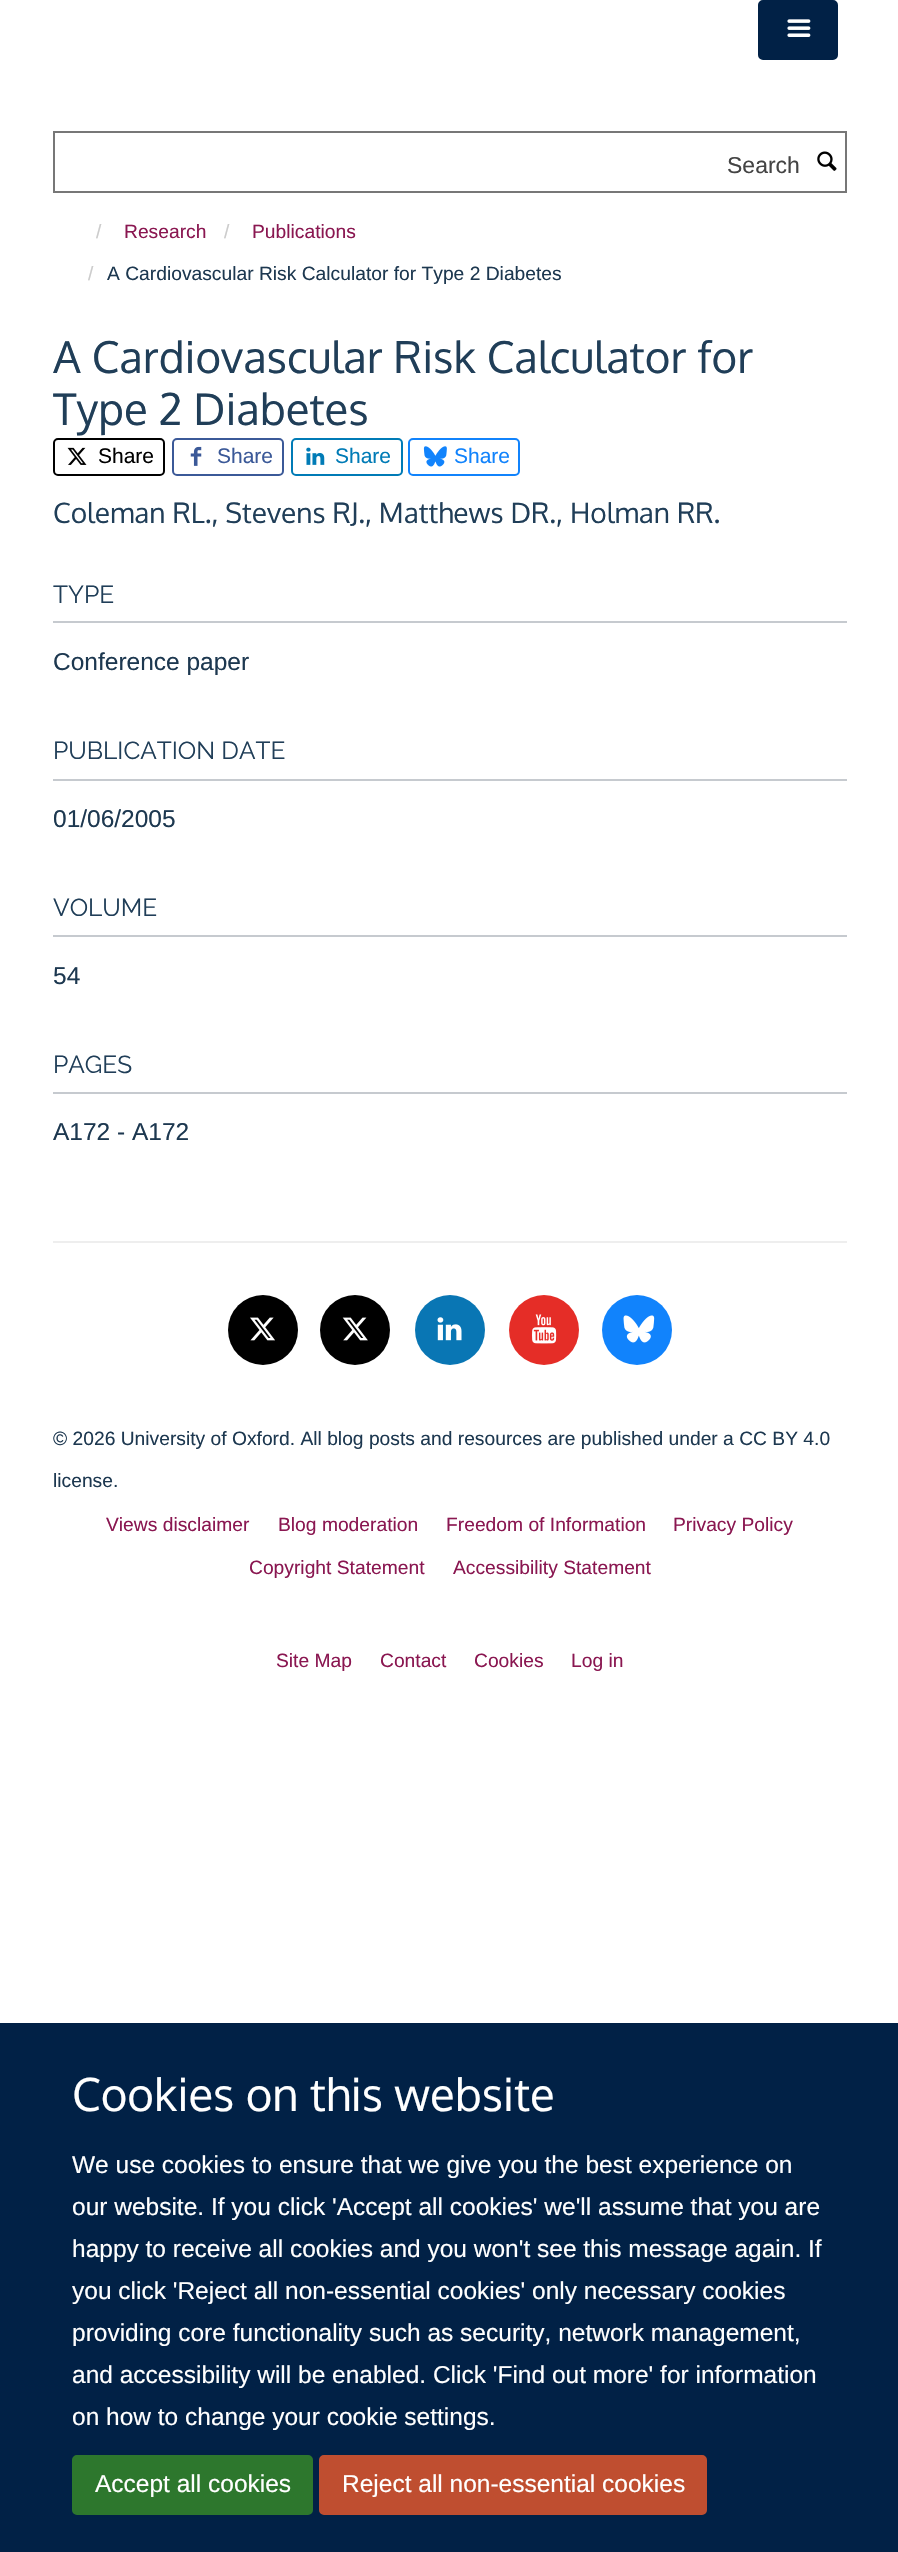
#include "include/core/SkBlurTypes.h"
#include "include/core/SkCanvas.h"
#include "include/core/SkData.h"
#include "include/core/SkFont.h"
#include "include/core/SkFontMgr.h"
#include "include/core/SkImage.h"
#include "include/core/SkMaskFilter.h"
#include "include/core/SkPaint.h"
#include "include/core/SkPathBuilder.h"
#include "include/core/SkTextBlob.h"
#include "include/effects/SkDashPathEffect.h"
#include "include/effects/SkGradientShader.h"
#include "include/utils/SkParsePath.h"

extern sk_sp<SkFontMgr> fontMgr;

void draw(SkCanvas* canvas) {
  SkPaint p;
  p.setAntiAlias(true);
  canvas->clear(SK_ColorWHITE);
  p.setColor(SkColorSetRGB(1, 33, 70));
  canvas->drawRoundRect(SkRect::MakeLTRB(759, 1, 837, 59), 4, 4, p);
  p.setStyle(SkPaint::kStroke_Style);
  p.setStrokeWidth(2);
  canvas->drawRoundRect(SkRect::MakeLTRB(759, 1, 837, 59), 4, 4, p);
  canvas->drawImageRect(SkImages::DeferredFromEncodedData(SkData::MakeFromFileName("images/1.png")), SkRect::MakeLTRB(787, 19, 811, 37), SkSamplingOptions());
  p.setColor(SkColorSetRGB(119, 119, 119));
  canvas->drawRect(SkRect::MakeLTRB(54, 132, 846, 192), p);
  canvas->drawImageRect(SkImages::DeferredFromEncodedData(SkData::MakeFromFileName("images/2.png")), SkRect::MakeLTRB(817, 151, 837, 171), SkSamplingOptions());
  p.setColor(SK_ColorBLACK);
  canvas->drawRoundRect(SkRect::MakeLTRB(54, 439, 164, 475), 4, 4, p);
  canvas->drawImageRect(SkImages::DeferredFromEncodedData(SkData::MakeFromFileName("images/3.png")), SkRect::MakeLTRB(67, 447, 87, 465), SkSamplingOptions());
  p.setColor(SkColorSetRGB(59, 89, 152));
  canvas->drawRoundRect(SkRect::MakeLTRB(173, 439, 283, 475), 4, 4, p);
  canvas->drawImageRect(SkImages::DeferredFromEncodedData(SkData::MakeFromFileName("images/4.png")), SkRect::MakeLTRB(190, 446, 202, 466), SkSamplingOptions());
  p.setColor(SkColorSetRGB(0, 123, 182));
  canvas->drawRoundRect(SkRect::MakeLTRB(292, 439, 402, 475), 4, 4, p);
  canvas->drawImageRect(SkImages::DeferredFromEncodedData(SkData::MakeFromFileName("images/5.png")), SkRect::MakeLTRB(306, 447, 325, 465), SkSamplingOptions());
  p.setColor(SkColorSetRGB(17, 131, 252));
  canvas->drawRoundRect(SkRect::MakeLTRB(409, 439, 519, 475), 4, 4, p);
  canvas->drawImageRect(SkImages::DeferredFromEncodedData(SkData::MakeFromFileName("images/6.png")), SkRect::MakeLTRB(423, 446, 447, 467), SkSamplingOptions());
  p.setStyle(SkPaint::kFill_Style);
  p.setColor(SkColorSetRGB(198, 202, 207));
  canvas->drawRect(SkRect::MakeLTRB(53, 621, 847, 623), p);
  canvas->drawRect(SkRect::MakeLTRB(53, 779, 847, 781), p);
  canvas->drawRect(SkRect::MakeLTRB(53, 935, 847, 937), p);
  canvas->drawRect(SkRect::MakeLTRB(53, 1092, 847, 1094), p);
  p.setColor(SkColorSetRGB(238, 238, 238));
  canvas->drawRect(SkRect::MakeLTRB(53, 1241, 847, 1243), p);
  p.setColor(SK_ColorBLACK);
  canvas->drawCircle(263, 1330, 35, p);
  canvas->drawImageRect(SkImages::DeferredFromEncodedData(SkData::MakeFromFileName("images/7.png")), SkRect::MakeLTRB(250, 1317, 275, 1341), SkSamplingOptions());
  canvas->drawCircle(355, 1330, 35, p);
  canvas->drawImageRect(SkImages::DeferredFromEncodedData(SkData::MakeFromFileName("images/8.png")), SkRect::MakeLTRB(342, 1317, 368, 1341), SkSamplingOptions());
  p.setColor(SkColorSetRGB(9, 118, 180));
  canvas->drawCircle(450, 1330, 35, p);
  canvas->drawImageRect(SkImages::DeferredFromEncodedData(SkData::MakeFromFileName("images/9.png")), SkRect::MakeLTRB(437, 1317, 462, 1341), SkSamplingOptions());
  p.setColor(SkColorSetRGB(229, 45, 39));
  canvas->drawCircle(544, 1330, 35, p);
  canvas->drawImageRect(SkImages::DeferredFromEncodedData(SkData::MakeFromFileName("images/10.png")), SkRect::MakeLTRB(532, 1314, 557, 1344), SkSamplingOptions());
  p.setColor(SkColorSetRGB(17, 131, 252));
  canvas->drawCircle(637, 1330, 35, p);
  canvas->drawImageRect(SkImages::DeferredFromEncodedData(SkData::MakeFromFileName("images/11.png")), SkRect::MakeLTRB(623, 1315, 655, 1343), SkSamplingOptions());
  p.setColor(SkColorSetRGB(1, 33, 70));
  canvas->drawRect(SkRect::MakeLTRB(0, 2023, 898, 2552), p);
  p.setColor(SkColorSetRGB(45, 119, 45));
  canvas->drawRoundRect(SkRect::MakeLTRB(73, 2456, 312, 2514), 4, 4, p);
  p.setStyle(SkPaint::kStroke_Style);
  canvas->drawRoundRect(SkRect::MakeLTRB(73, 2456, 312, 2514), 4, 4, p);
  p.setStyle(SkPaint::kFill_Style);
  p.setColor(SkColorSetRGB(191, 78, 48));
  canvas->drawRoundRect(SkRect::MakeLTRB(320, 2456, 706, 2514), 4, 4, p);
  p.setStyle(SkPaint::kStroke_Style);
  canvas->drawRoundRect(SkRect::MakeLTRB(320, 2456, 706, 2514), 4, 4, p);
  SkFont font1(fontMgr->matchFamilyStyle("Liberation Sans", SkFontStyle::Normal()), 23);
  font1.setSubpixel(true);
  p.setStyle(SkPaint::kFill_Style);
  p.setColor(SkColorSetRGB(68, 68, 68));
  canvas->drawString("Search", 727, 173, font1, p);
  SkFont font2(fontMgr->matchFamilyStyle("Liberation Sans", SkFontStyle::Normal()), 19.25f);
  font2.setSubpixel(true);
  p.setColor(SkColorSetRGB(204, 204, 204));
  canvas->drawString("/", 96, 238, font2, p);
  p.setColor(SkColorSetRGB(138, 23, 81));
  canvas->drawString("Research", 124, 238, font2, p);
  p.setColor(SkColorSetRGB(204, 204, 204));
  canvas->drawString("/", 224, 238, font2, p);
  p.setColor(SkColorSetRGB(138, 23, 81));
  canvas->drawString("Publications", 252, 238, font2, p);
  p.setColor(SkColorSetRGB(204, 204, 204));
  canvas->drawString("/", 88, 280, font2, p);
  p.setColor(SkColorSetRGB(29, 56, 80));
  canvas->drawString("A Cardiovascular Risk Calculator for Type 2 Diabetes", 107, 280, font2, p);
  SkFont font3(fontMgr->matchFamilyStyle("Oxygen", SkFontStyle::Normal()), 43.75f);
  font3.setSubpixel(true);
  p.setColor(SkColorSetRGB(32, 62, 88));
  canvas->drawString("A Cardiovascular Risk Calculator for", 53, 373, font3, p);
  canvas->drawString("Type 2 Diabetes", 53, 425, font3, p);
  SkFont font4(fontMgr->matchFamilyStyle("Liberation Sans", SkFontStyle::Normal()), 21);
  font4.setSubpixel(true);
  p.setColor(SK_ColorBLACK);
  canvas->drawString("Share", 98, 463, font4, p);
  p.setColor(SkColorSetRGB(59, 89, 152));
  canvas->drawString("Share", 217, 463, font4, p);
  p.setColor(SkColorSetRGB(0, 123, 182));
  canvas->drawString("Share", 335, 463, font4, p);
  p.setColor(SkColorSetRGB(17, 131, 252));
  canvas->drawString("Share", 454, 463, font4, p);
  SkFont font5(fontMgr->matchFamilyStyle("Oxygen", SkFontStyle::Normal()), 28);
  font5.setSubpixel(true);
  p.setColor(SkColorSetRGB(32, 62, 88));
  canvas->drawString("Coleman RL., Stevens RJ., Matthews DR., Holman RR.", 53, 523, font5, p);
  SkFont font6(fontMgr->matchFamilyStyle("Raleway", SkFontStyle(100, SkFontStyle::kNormal_Width, SkFontStyle::kUpright_Slant)), 24.5f);
  font6.setSubpixel(true);
  canvas->drawString("TYPE", 53, 603, font6, p);
  SkFont font7(fontMgr->matchFamilyStyle("Liberation Sans", SkFontStyle::Normal()), 24.5f);
  font7.setSubpixel(true);
  p.setColor(SkColorSetRGB(29, 56, 80));
  canvas->drawString("Conference paper", 53, 670, font7, p);
  p.setColor(SkColorSetRGB(32, 62, 88));
  canvas->drawString("PUBLICATION DATE", 53, 759, font6, p);
  p.setColor(SkColorSetRGB(29, 56, 80));
  canvas->drawString("01/06/2005", 53, 827, font7, p);
  p.setColor(SkColorSetRGB(32, 62, 88));
  canvas->drawString("VOLUME", 53, 916, font6, p);
  p.setColor(SkColorSetRGB(29, 56, 80));
  canvas->drawString("54", 53, 984, font7, p);
  p.setColor(SkColorSetRGB(32, 62, 88));
  canvas->drawString("PAGES", 53, 1073, font6, p);
  p.setColor(SkColorSetRGB(29, 56, 80));
  canvas->drawString("A172 - A172", 53, 1140, font7, p);
  canvas->drawString("© 2026 University of Oxford. All blog posts and resources are published under a CC BY 4.0", 53, 1445, font2, p);
  canvas->drawString("license.", 53, 1487, font2, p);
  p.setColor(SkColorSetRGB(138, 23, 81));
  canvas->drawString("Views disclaimer", 106, 1531, font2, p);
  canvas->drawString("Blog moderation", 278, 1531, font2, p);
  canvas->drawString("Freedom of Information", 446, 1531, font2, p);
  canvas->drawString("Privacy Policy", 673, 1531, font2, p);
  canvas->drawString("Copyright Statement", 249, 1574, font2, p);
  canvas->drawString("Accessibility Statement", 453, 1574, font2, p);
  canvas->drawString("Site Map", 276, 1667, font2, p);
  canvas->drawString("Contact", 380, 1667, font2, p);
  canvas->drawString("Cookies", 474, 1667, font2, p);
  canvas->drawString("Log in", 571, 1667, font2, p);
  SkFont font8(fontMgr->matchFamilyStyle("Oxygen", SkFontStyle::Normal()), 45.5f);
  font8.setSubpixel(true);
  p.setColor(SK_ColorWHITE);
  canvas->drawString("Cookies on this website", 72, 2111, font8, p);
  canvas->drawString("We use cookies to ensure that we give you the best experience on", 72, 2173, font7, p);
  canvas->drawString("our website. If you click 'Accept all cookies' we'll assume that you are", 72, 2215, font7, p);
  canvas->drawString("happy to receive all cookies and you won't see this message again. If", 72, 2257, font7, p);
  canvas->drawString("you click 'Reject all non-essential cookies' only necessary cookies", 72, 2299, font7, p);
  canvas->drawString("providing core functionality such as security, network management,", 72, 2341, font7, p);
  canvas->drawString("and accessibility will be enabled. Click 'Find out more' for information", 72, 2383, font7, p);
  canvas->drawString("on how to change your cookie settings.", 72, 2425, font7, p);
  canvas->drawString("Accept all cookies", 95, 2492, font7, p);
  canvas->drawString("Reject all non-essential cookies", 342, 2492, font7, p);
}
